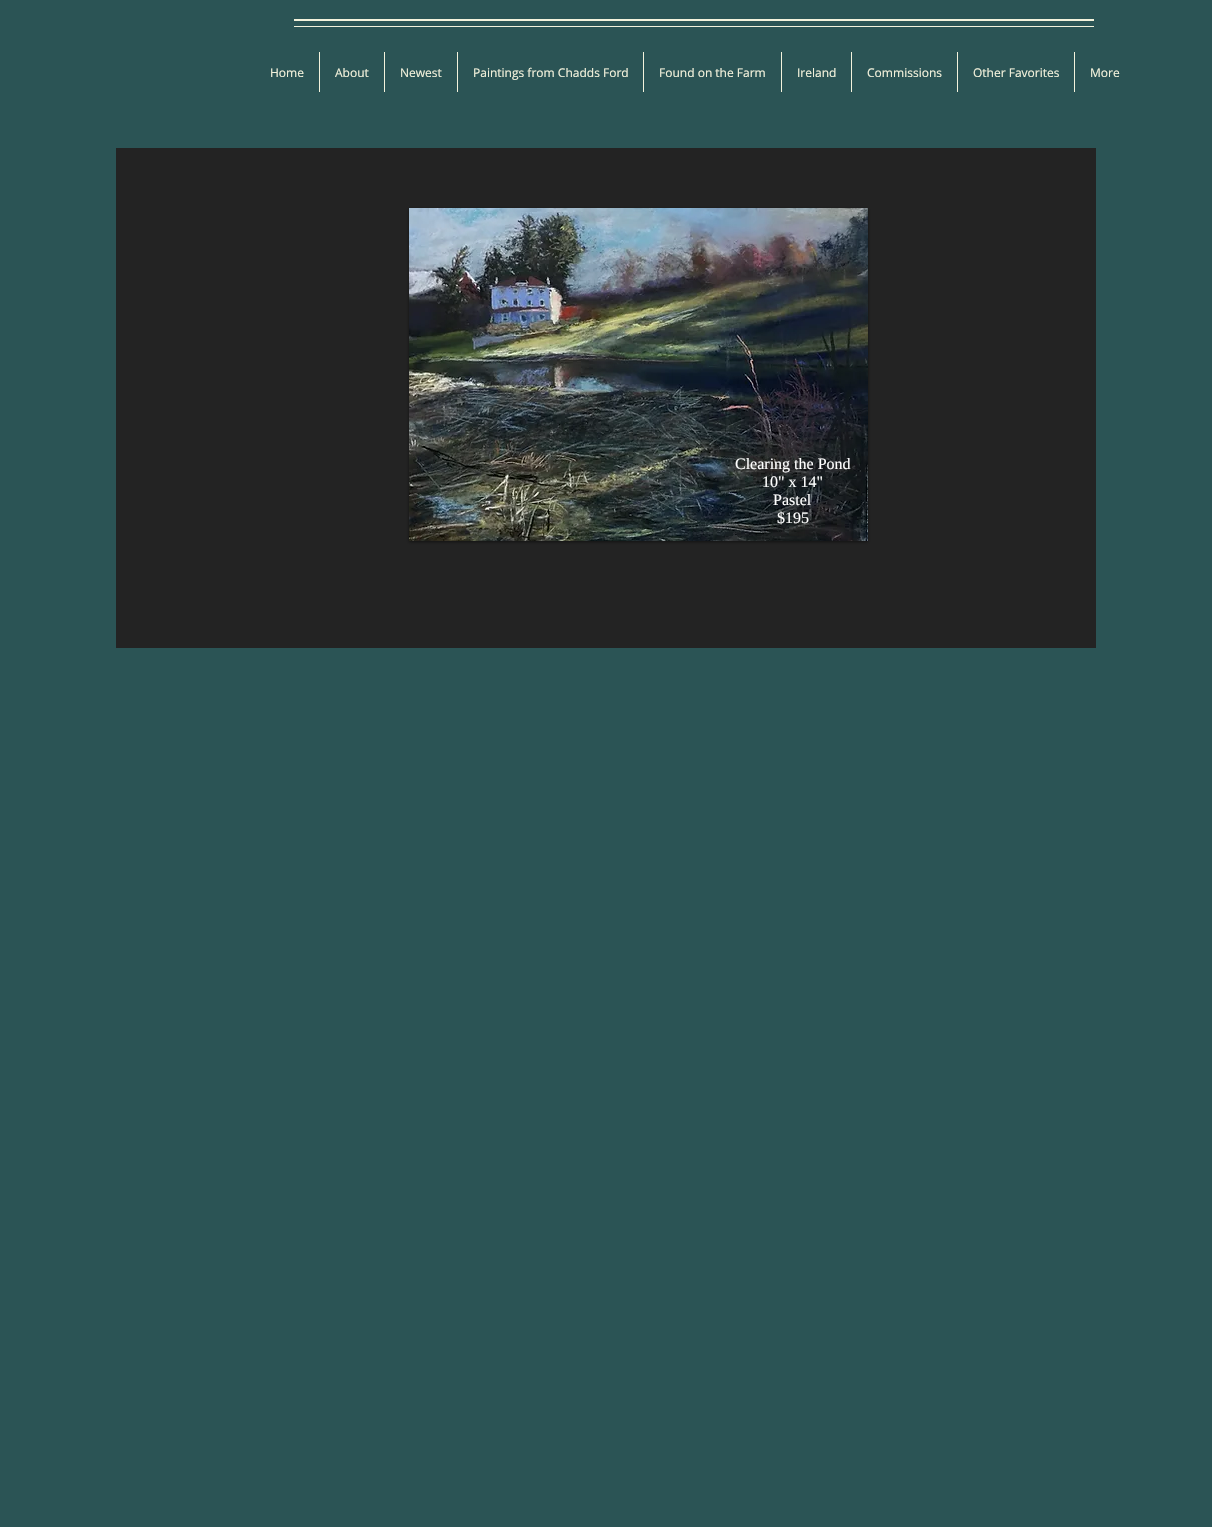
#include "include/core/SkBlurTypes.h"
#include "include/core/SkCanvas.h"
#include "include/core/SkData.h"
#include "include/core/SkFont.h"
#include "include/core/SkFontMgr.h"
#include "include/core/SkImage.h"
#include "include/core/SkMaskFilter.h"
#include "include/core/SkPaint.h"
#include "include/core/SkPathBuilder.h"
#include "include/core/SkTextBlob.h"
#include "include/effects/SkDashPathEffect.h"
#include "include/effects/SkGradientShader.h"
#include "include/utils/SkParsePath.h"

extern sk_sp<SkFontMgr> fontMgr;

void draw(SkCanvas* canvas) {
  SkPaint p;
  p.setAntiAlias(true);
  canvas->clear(SkColorSetRGB(43, 84, 85));
  p.setColor(SkColorSetRGB(243, 242, 220));
  canvas->drawRect(SkRect::MakeLTRB(294, 19, 1094, 21), p);
  canvas->drawRect(SkRect::MakeLTRB(294, 26, 1094, 27), p);
  canvas->drawRect(SkRect::MakeLTRB(319, 52, 320, 92), p);
  canvas->drawRect(SkRect::MakeLTRB(384, 52, 385, 92), p);
  canvas->drawRect(SkRect::MakeLTRB(457, 52, 458, 92), p);
  canvas->drawRect(SkRect::MakeLTRB(643, 52, 644, 92), p);
  canvas->drawRect(SkRect::MakeLTRB(781, 52, 782, 92), p);
  canvas->drawRect(SkRect::MakeLTRB(851, 52, 852, 92), p);
  canvas->drawRect(SkRect::MakeLTRB(957, 52, 958, 92), p);
  canvas->drawRect(SkRect::MakeLTRB(1074, 52, 1075, 92), p);
  p.setColor(SkColorSetRGB(35, 35, 35));
  canvas->drawRect(SkRect::MakeLTRB(116, 148, 1096, 648), p);
  p.setColor(SkColorSetARGB(128, 0, 0, 0));
  p.setMaskFilter(SkMaskFilter::MakeBlur(kNormal_SkBlurStyle, 1.5f));
  canvas->drawRect(SkRect::MakeLTRB(409, 209, 868, 542), p);
  p.setMaskFilter(nullptr);
  canvas->drawImageRect(SkImages::DeferredFromEncodedData(SkData::MakeFromFileName("images/1.png")), SkRect::MakeLTRB(409, 208, 868, 541), SkSamplingOptions());
  SkFont font1(fontMgr->matchFamilyStyle("Open Sans", SkFontStyle::Normal()), 12);
  font1.setSubpixel(true);
  p.setColor(SkColorSetRGB(243, 242, 220));
  canvas->drawString("Home", 270, 77, font1, p);
  canvas->drawString("About", 335, 77, font1, p);
  canvas->drawString("Newest", 400, 77, font1, p);
  canvas->drawString("Paintings from Chadds Ford", 473, 77, font1, p);
  canvas->drawString("Found on the Farm", 659, 77, font1, p);
  canvas->drawString("Ireland", 797, 77, font1, p);
  canvas->drawString("Commissions", 867, 77, font1, p);
  canvas->drawString("Other Favorites", 973, 77, font1, p);
  canvas->drawString("More", 1090, 77, font1, p);
  SkFont font2(fontMgr->matchFamilyStyle("Liberation Serif", SkFontStyle::Normal()), 16);
  font2.setSubpixel(true);
  p.setColor(SK_ColorWHITE);
  canvas->drawString("Clearing the Pond", 735, 469, font2, p);
  canvas->drawString("10\" x 14\"", 762, 487, font2, p);
  canvas->drawString("Pastel", 773, 505, font2, p);
  canvas->drawString("$195", 777, 523, font2, p);
}
